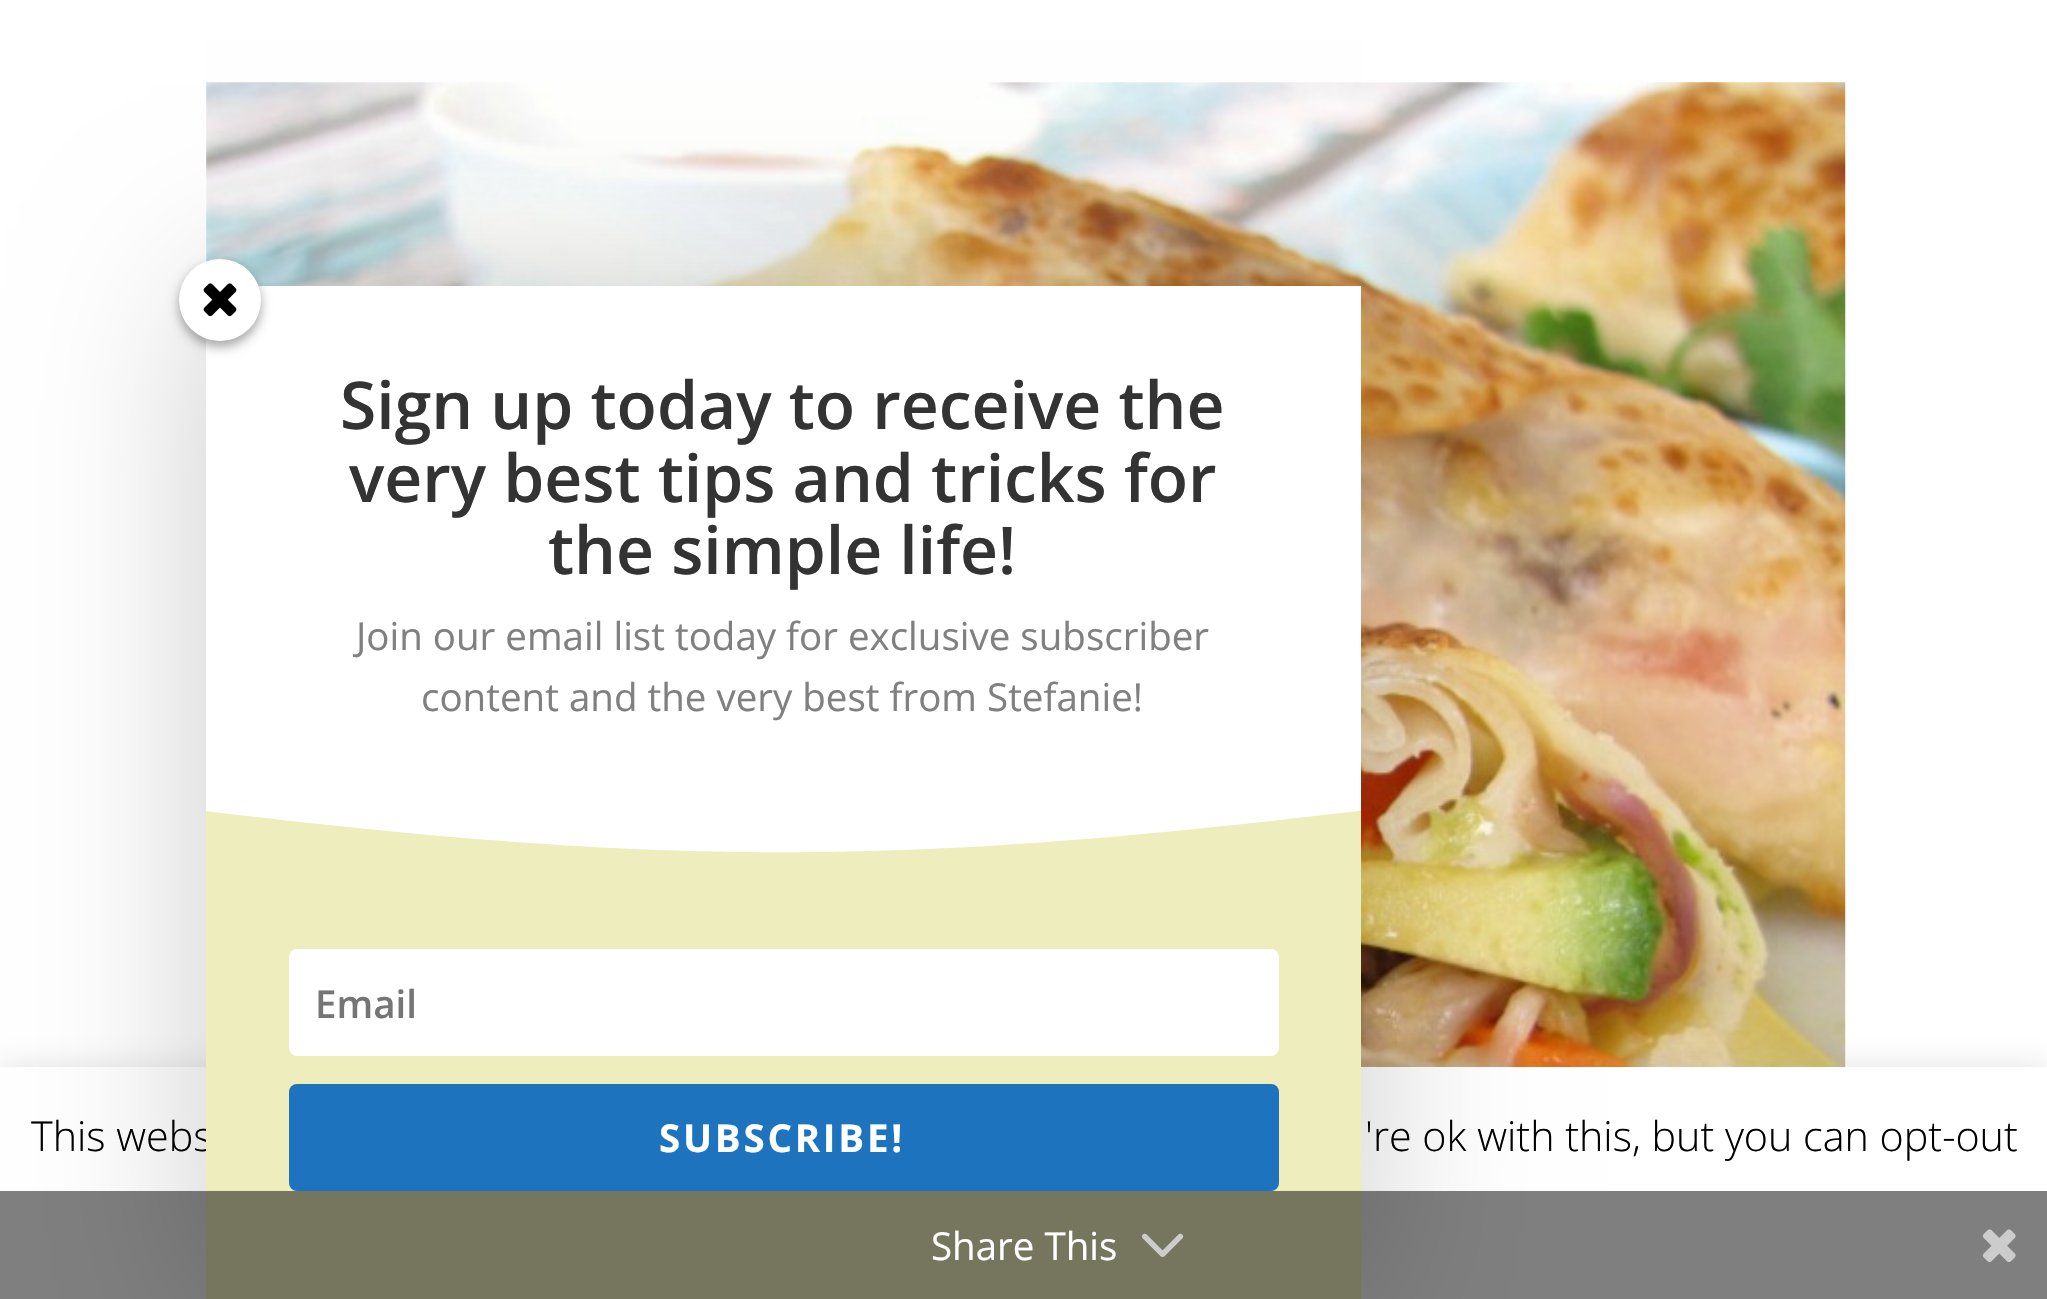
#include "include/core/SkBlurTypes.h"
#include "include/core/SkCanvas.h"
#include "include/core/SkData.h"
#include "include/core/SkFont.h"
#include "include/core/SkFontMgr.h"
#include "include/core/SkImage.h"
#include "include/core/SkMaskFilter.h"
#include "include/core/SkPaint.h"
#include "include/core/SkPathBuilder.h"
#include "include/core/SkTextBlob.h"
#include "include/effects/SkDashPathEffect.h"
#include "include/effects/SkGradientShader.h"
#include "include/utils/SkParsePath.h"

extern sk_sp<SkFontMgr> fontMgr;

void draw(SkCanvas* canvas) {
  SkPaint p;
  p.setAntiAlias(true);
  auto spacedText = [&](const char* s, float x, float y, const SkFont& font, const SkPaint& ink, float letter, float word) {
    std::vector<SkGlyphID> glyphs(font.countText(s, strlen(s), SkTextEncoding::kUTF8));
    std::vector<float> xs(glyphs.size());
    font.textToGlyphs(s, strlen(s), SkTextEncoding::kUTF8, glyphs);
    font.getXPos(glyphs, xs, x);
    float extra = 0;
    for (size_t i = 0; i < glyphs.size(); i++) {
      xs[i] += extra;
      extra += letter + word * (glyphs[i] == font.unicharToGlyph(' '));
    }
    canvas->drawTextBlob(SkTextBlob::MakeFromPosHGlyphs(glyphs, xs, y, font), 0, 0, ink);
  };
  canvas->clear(SK_ColorWHITE);
  canvas->drawImageRect(SkImages::DeferredFromEncodedData(SkData::MakeFromFileName("images/1.png")), SkRect::MakeLTRB(206, 82, 1846, 1067), SkSamplingOptions());
  p.setColor(SkColorSetARGB(77, 172, 171, 171));
  p.setMaskFilter(SkMaskFilter::MakeBlur(kNormal_SkBlurStyle, 14));
  canvas->drawRect(SkRect::MakeLTRB(0, 1064, 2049, 1298), p);
  p.setMaskFilter(nullptr);
  p.setColor(SK_ColorWHITE);
  canvas->drawRect(SkRect::MakeLTRB(0, 1067, 2047, 1299), p);
  p.setColor(SkColorSetARGB(51, 0, 0, 0));
  p.setMaskFilter(SkMaskFilter::MakeBlur(kNormal_SkBlurStyle, 82.5f));
  canvas->drawRect(SkRect::MakeLTRB(206, 286, 1361, 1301), p);
  p.setMaskFilter(nullptr);
  p.setColor(SK_ColorWHITE);
  canvas->drawRect(SkRect::MakeLTRB(206, 286, 1361, 811), p);
  p.setColor(SkColorSetARGB(87, 0, 0, 0));
  p.setMaskFilter(SkMaskFilter::MakeBlur(kNormal_SkBlurStyle, 5.5f));
  canvas->drawRoundRect(SkRect::MakeLTRB(179, 264, 261, 347), 41, 41, p);
  p.setMaskFilter(nullptr);
  p.setColor(SK_ColorWHITE);
  canvas->drawCircle(220, 300, 41, p);
  canvas->drawImageRect(SkImages::DeferredFromEncodedData(SkData::MakeFromFileName("images/2.png")), SkRect::MakeLTRB(203, 283, 237, 317), SkSamplingOptions());
  SkFont font1(fontMgr->matchFamilyStyle("Open Sans", SkFontStyle(600, SkFontStyle::kNormal_Width, SkFontStyle::kUpright_Slant)), 66);
  font1.setSubpixel(true);
  p.setColor(SkColorSetRGB(51, 51, 51));
  canvas->drawString("Sign up today to receive the", 340, 429, font1, p);
  canvas->drawString("very best tips and tricks for", 349, 502, font1, p);
  canvas->drawString("the simple life!", 548, 574, font1, p);
  SkFont font2(fontMgr->matchFamilyStyle("Open Sans", SkFontStyle::Normal()), 38.5f);
  font2.setSubpixel(true);
  p.setColor(SkColorSetRGB(128, 128, 128));
  canvas->drawString("Join our email list today for exclusive subscriber", 356, 650, font2, p);
  canvas->drawString("content and the very best from Stefanie!", 421, 711, font2, p);
  SkFont font3(fontMgr->matchFamilyStyle("Open Sans", SkFontStyle(300, SkFontStyle::kNormal_Width, SkFontStyle::kUpright_Slant)), 41.25f);
  font3.setSubpixel(true);
  p.setColor(SK_ColorBLACK);
  canvas->drawString("This webs", 31, 1151, font3, p);
  p.setColor(SkColorSetRGB(237, 237, 189));
  canvas->drawRect(SkRect::MakeLTRB(206, 811, 1361, 1299), p);
  p.setColor(SK_ColorWHITE);
  canvas->drawPath(SkPathBuilder().moveTo(204, 811).cubicTo(666, 866, 896, 866, 1358, 811).close().detach(), p);
  p.setColor(SkColorSetRGB(30, 115, 190));
  canvas->drawRoundRect(SkRect::MakeLTRB(289, 1084, 1279, 1191), 8, 8, p);
  SkFont font4(fontMgr->matchFamilyStyle("Open Sans", SkFontStyle::Bold()), 38.5f);
  font4.setSubpixel(true);
  p.setColor(SK_ColorWHITE);
  spacedText("SUBSCRIBE!", 659, 1152, font4, p, 2.75f, 0);
  canvas->drawRoundRect(SkRect::MakeLTRB(289, 949, 1279, 1056), 8, 8, p);
  SkFont font5(fontMgr->matchFamilyStyle("Open Sans", SkFontStyle(600, SkFontStyle::kNormal_Width, SkFontStyle::kUpright_Slant)), 38.5f);
  font5.setSubpixel(true);
  p.setColor(SkColorSetRGB(117, 117, 117));
  canvas->drawString("Email", 315, 1018, font5, p);
  p.setColor(SK_ColorBLACK);
  canvas->drawString("'re ok with this, but you can opt-out", 1365, 1151, font3, p);
  p.setColor(SkColorSetARGB(128, 0, 0, 0));
  canvas->drawRect(SkRect::MakeLTRB(0, 1191, 2047, 1299), p);
  p.setColor(SK_ColorWHITE);
  canvas->drawString("Share This", 931, 1260, font2, p);
  canvas->drawImageRect(SkImages::DeferredFromEncodedData(SkData::MakeFromFileName("images/3.png")), SkRect::MakeLTRB(1142, 1233, 1184, 1257), SkSamplingOptions());
  canvas->drawImageRect(SkImages::DeferredFromEncodedData(SkData::MakeFromFileName("images/4.png")), SkRect::MakeLTRB(1982, 1229, 2016, 1263), SkSamplingOptions());
}
